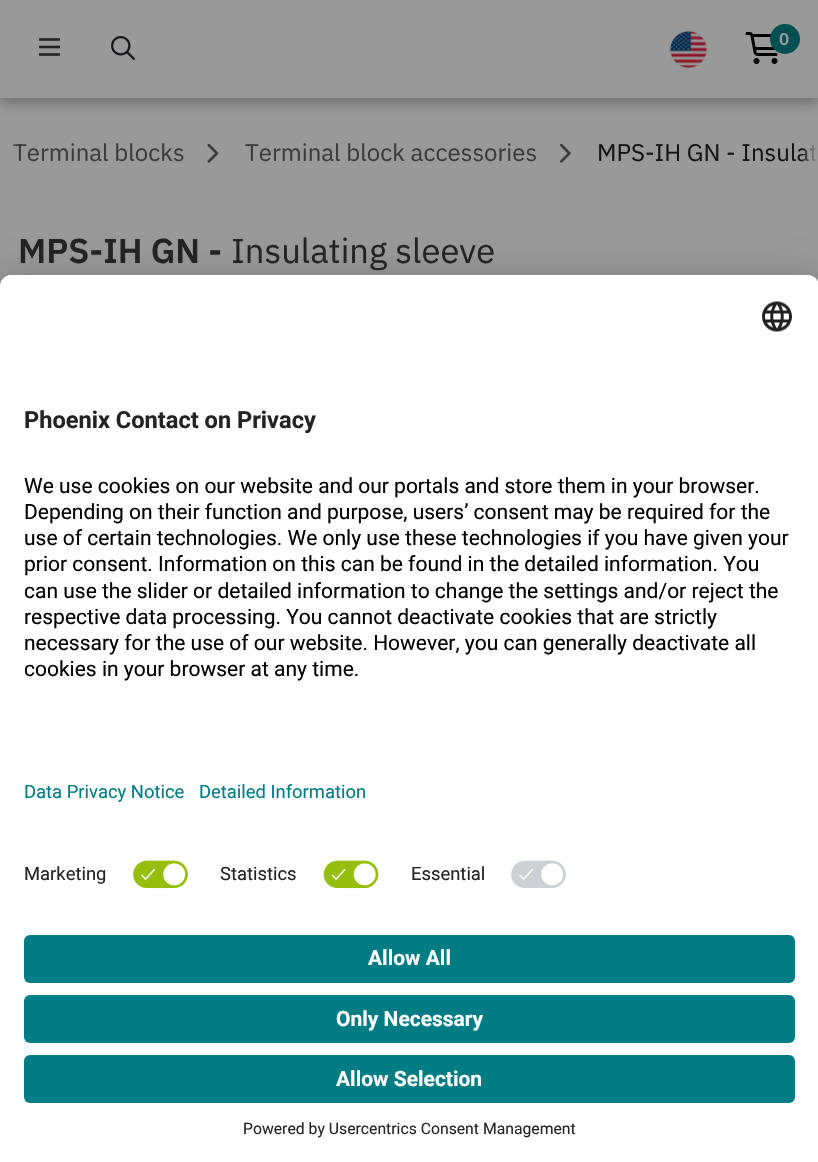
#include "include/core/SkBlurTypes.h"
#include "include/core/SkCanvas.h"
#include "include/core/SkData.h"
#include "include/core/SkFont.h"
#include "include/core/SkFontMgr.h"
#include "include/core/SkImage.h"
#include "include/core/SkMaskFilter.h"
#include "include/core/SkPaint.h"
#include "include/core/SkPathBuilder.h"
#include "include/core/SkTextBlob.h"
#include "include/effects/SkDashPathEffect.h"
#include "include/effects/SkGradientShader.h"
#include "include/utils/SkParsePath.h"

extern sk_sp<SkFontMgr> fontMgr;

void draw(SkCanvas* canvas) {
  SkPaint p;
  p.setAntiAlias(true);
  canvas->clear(SkColorSetRGB(153, 153, 153));
  p.setColor(SkColorSetARGB(77, 19, 19, 19));
  p.setMaskFilter(SkMaskFilter::MakeBlur(kNormal_SkBlurStyle, 6));
  canvas->drawRect(SkRect::MakeLTRB(0, 6, 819, 104), p);
  p.setMaskFilter(nullptr);
  p.setColor(SkColorSetRGB(153, 153, 153));
  canvas->drawRect(SkRect::MakeLTRB(0, 0, 818, 98), p);
  canvas->drawImageRect(SkImages::DeferredFromEncodedData(SkData::MakeFromFileName("images/1.png")), SkRect::MakeLTRB(39, 38, 60, 56), SkSamplingOptions());
  canvas->drawImageRect(SkImages::DeferredFromEncodedData(SkData::MakeFromFileName("images/2.png")), SkRect::MakeLTRB(111, 36, 135, 60), SkSamplingOptions());
  canvas->drawImageRect(SkImages::DeferredFromEncodedData(SkData::MakeFromFileName("images/3.png")), SkRect::MakeLTRB(669, 30, 708, 69), SkSamplingOptions());
  canvas->drawImageRect(SkImages::DeferredFromEncodedData(SkData::MakeFromFileName("images/4.png")), SkRect::MakeLTRB(745, 32, 778, 64), SkSamplingOptions());
  p.setColor(SkColorSetRGB(0, 79, 83));
  canvas->drawCircle(785, 39, 15, p);
  canvas->drawImageRect(SkImages::DeferredFromEncodedData(SkData::MakeFromFileName("images/5.png")), SkRect::MakeLTRB(207, 143, 219, 163), SkSamplingOptions());
  canvas->drawImageRect(SkImages::DeferredFromEncodedData(SkData::MakeFromFileName("images/6.png")), SkRect::MakeLTRB(560, 143, 571, 163), SkSamplingOptions());
  p.setColor(SkColorSetARGB(77, 0, 0, 0));
  p.setMaskFilter(SkMaskFilter::MakeBlur(kNormal_SkBlurStyle, 21));
  canvas->drawRoundRect(SkRect::MakeLTRB(0, 305, 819, 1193), 12, 12, p);
  p.setMaskFilter(nullptr);
  p.setColor(SkColorSetARGB(56, 0, 0, 0));
  p.setMaskFilter(SkMaskFilter::MakeBlur(kNormal_SkBlurStyle, 19.5f));
  canvas->drawRoundRect(SkRect::MakeLTRB(0, 282, 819, 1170), 12, 12, p);
  p.setMaskFilter(nullptr);
  p.setColor(SK_ColorWHITE);
  canvas->drawPath(SkPathBuilder().moveTo(12, 275).lineTo(807, 275).cubicTo(813.5f, 275, 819, 280.5f, 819, 287).lineTo(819, 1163).lineTo(0, 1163).lineTo(0, 287).cubicTo(0, 280.5f, 5.5f, 275, 12, 275).close().detach(), p);
  canvas->drawPath(SkPathBuilder().moveTo(12, 275).lineTo(807, 275).cubicTo(813.5f, 275, 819, 280.5f, 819, 287).lineTo(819, 917).lineTo(0, 917).lineTo(0, 287).cubicTo(0, 280.5f, 5.5f, 275, 12, 275).close().detach(), p);
  canvas->drawPath(SkPathBuilder().moveTo(12, 275).lineTo(807, 275).cubicTo(813.5f, 275, 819, 280.5f, 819, 287).lineTo(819, 851).lineTo(0, 851).lineTo(0, 287).cubicTo(0, 280.5f, 5.5f, 275, 12, 275).close().detach(), p);
  canvas->drawImageRect(SkImages::DeferredFromEncodedData(SkData::MakeFromFileName("images/7.png")), SkRect::MakeLTRB(762, 301, 792, 332), SkSamplingOptions());
  canvas->drawImageRect(SkImages::DeferredFromEncodedData(SkData::MakeFromFileName("images/8.png")), SkRect::MakeLTRB(133, 860, 189, 889), SkSamplingOptions());
  canvas->drawImageRect(SkImages::DeferredFromEncodedData(SkData::MakeFromFileName("images/9.png")), SkRect::MakeLTRB(323, 860, 379, 889), SkSamplingOptions());
  canvas->drawImageRect(SkImages::DeferredFromEncodedData(SkData::MakeFromFileName("images/10.png")), SkRect::MakeLTRB(511, 860, 566, 888), SkSamplingOptions());
  p.setColor(SkColorSetRGB(0, 124, 132));
  canvas->drawRoundRect(SkRect::MakeLTRB(24, 935, 795, 983), 6, 6, p);
  canvas->drawRoundRect(SkRect::MakeLTRB(24, 995, 795, 1043), 6, 6, p);
  canvas->drawRoundRect(SkRect::MakeLTRB(24, 1055, 795, 1103), 6, 6, p);
  SkFont font1(fontMgr->matchFamilyStyle("IBM Plex Sans", SkFontStyle(600, SkFontStyle::kNormal_Width, SkFontStyle::kUpright_Slant)), 17);
  font1.setSubpixel(true);
  p.setColor(SkColorSetRGB(153, 153, 153));
  canvas->drawString("0", 779, 45, font1, p);
  SkFont font2(fontMgr->matchFamilyStyle("IBM Plex Sans", SkFontStyle::Normal()), 24);
  font2.setSubpixel(true);
  p.setColor(SkColorSetRGB(59, 59, 59));
  canvas->drawString("Terminal blocks", 13, 161, font2, p);
  canvas->drawString("Terminal block accessories", 245, 161, font2, p);
  p.setColor(SkColorSetRGB(19, 19, 19));
  canvas->drawString("MPS-IH GN - Insulat", 597, 161, font2, p);
  {
    const SkColor colors[] = {SkColorSetRGB(153, 153, 153), SkColorSetARGB(0, 153, 153, 153)};
    const float stops[] = {0.3f, 1};
    const SkPoint ends[] = {{-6, 164}, {18, 164}};
    p.setShader(SkGradientShader::MakeLinear(ends, colors, stops, 2, SkTileMode::kClamp));
    p.setAlpha(255);
  }
  canvas->drawRect(SkRect::MakeLTRB(14, 144, 18, 146), p);
  {
    const SkColor colors[] = {SkColorSetRGB(153, 153, 153), SkColorSetARGB(0, 153, 153, 153)};
    const float stops[] = {0.3f, 1};
    const SkPoint ends[] = {{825, 164}, {801, 164}};
    p.setShader(SkGradientShader::MakeLinear(ends, colors, stops, 2, SkTileMode::kClamp));
    p.setAlpha(255);
  }
  canvas->drawRect(SkRect::MakeLTRB(801, 145, 817, 161), p);
  SkFont font3(fontMgr->matchFamilyStyle("IBM Plex Sans", SkFontStyle(600, SkFontStyle::kNormal_Width, SkFontStyle::kUpright_Slant)), 34.5f);
  font3.setSubpixel(true);
  p.setShader(nullptr);
  p.setColor(SkColorSetRGB(35, 35, 35));
  canvas->drawString("MPS-IH GN -", 18, 263, font3, p);
  SkFont font4(fontMgr->matchFamilyStyle("IBM Plex Sans", SkFontStyle::Normal()), 34.5f);
  font4.setSubpixel(true);
  canvas->drawString("Insulating sleeve", 231, 263, font4, p);
  SkFont font5(fontMgr->matchFamilyStyle("Roboto", SkFontStyle::Bold()), 23.6f);
  font5.setSubpixel(true);
  canvas->drawString("Phoenix Contact on Privacy", 24, 428, font5, p);
  SkFont font6(fontMgr->matchFamilyStyle("Roboto", SkFontStyle::Normal()), 21);
  font6.setSubpixel(true);
  p.setColor(SK_ColorBLACK);
  canvas->drawString("We use cookies on our website and our portals and store them in your browser.", 24, 493, font6, p);
  canvas->drawString("Depending on their function and purpose, users’ consent may be required for the", 24, 519, font6, p);
  canvas->drawString("use of certain technologies. We only use these technologies if you have given your", 24, 545, font6, p);
  canvas->drawString("prior consent. Information on this can be found in the detailed information. You", 24, 571, font6, p);
  canvas->drawString("can use the slider or detailed information to change the settings and/or reject the", 24, 598, font6, p);
  canvas->drawString("respective data processing. You cannot deactivate cookies that are strictly", 24, 624, font6, p);
  canvas->drawString("necessary for the use of our website. However, you can generally deactivate all", 24, 650, font6, p);
  canvas->drawString("cookies in your browser at any time.", 24, 676, font6, p);
  SkFont font7(fontMgr->matchFamilyStyle("Roboto", SkFontStyle::Normal()), 18.4f);
  font7.setSubpixel(true);
  p.setColor(SkColorSetRGB(0, 124, 132));
  canvas->drawString("Data Privacy Notice", 24, 798, font7, p);
  canvas->drawString("Detailed Information", 199, 798, font7, p);
  p.setColor(SkColorSetRGB(35, 35, 35));
  canvas->drawString("Marketing", 24, 880, font7, p);
  canvas->drawString("Statistics", 220, 880, font7, p);
  canvas->drawString("Essential", 411, 880, font7, p);
  SkFont font8(fontMgr->matchFamilyStyle("Roboto", SkFontStyle::Bold()), 21);
  font8.setSubpixel(true);
  p.setColor(SK_ColorWHITE);
  canvas->drawString("Allow All", 368, 965, font8, p);
  canvas->drawString("Only Necessary", 336, 1026, font8, p);
  canvas->drawString("Allow Selection", 336, 1086, font8, p);
  SkFont font9(fontMgr->matchFamilyStyle("Roboto", SkFontStyle::Normal()), 15.75f);
  font9.setSubpixel(true);
  p.setColor(SkColorSetRGB(35, 35, 35));
  canvas->drawString("Powered by Usercentrics Consent Management", 243, 1134, font9, p);
}
